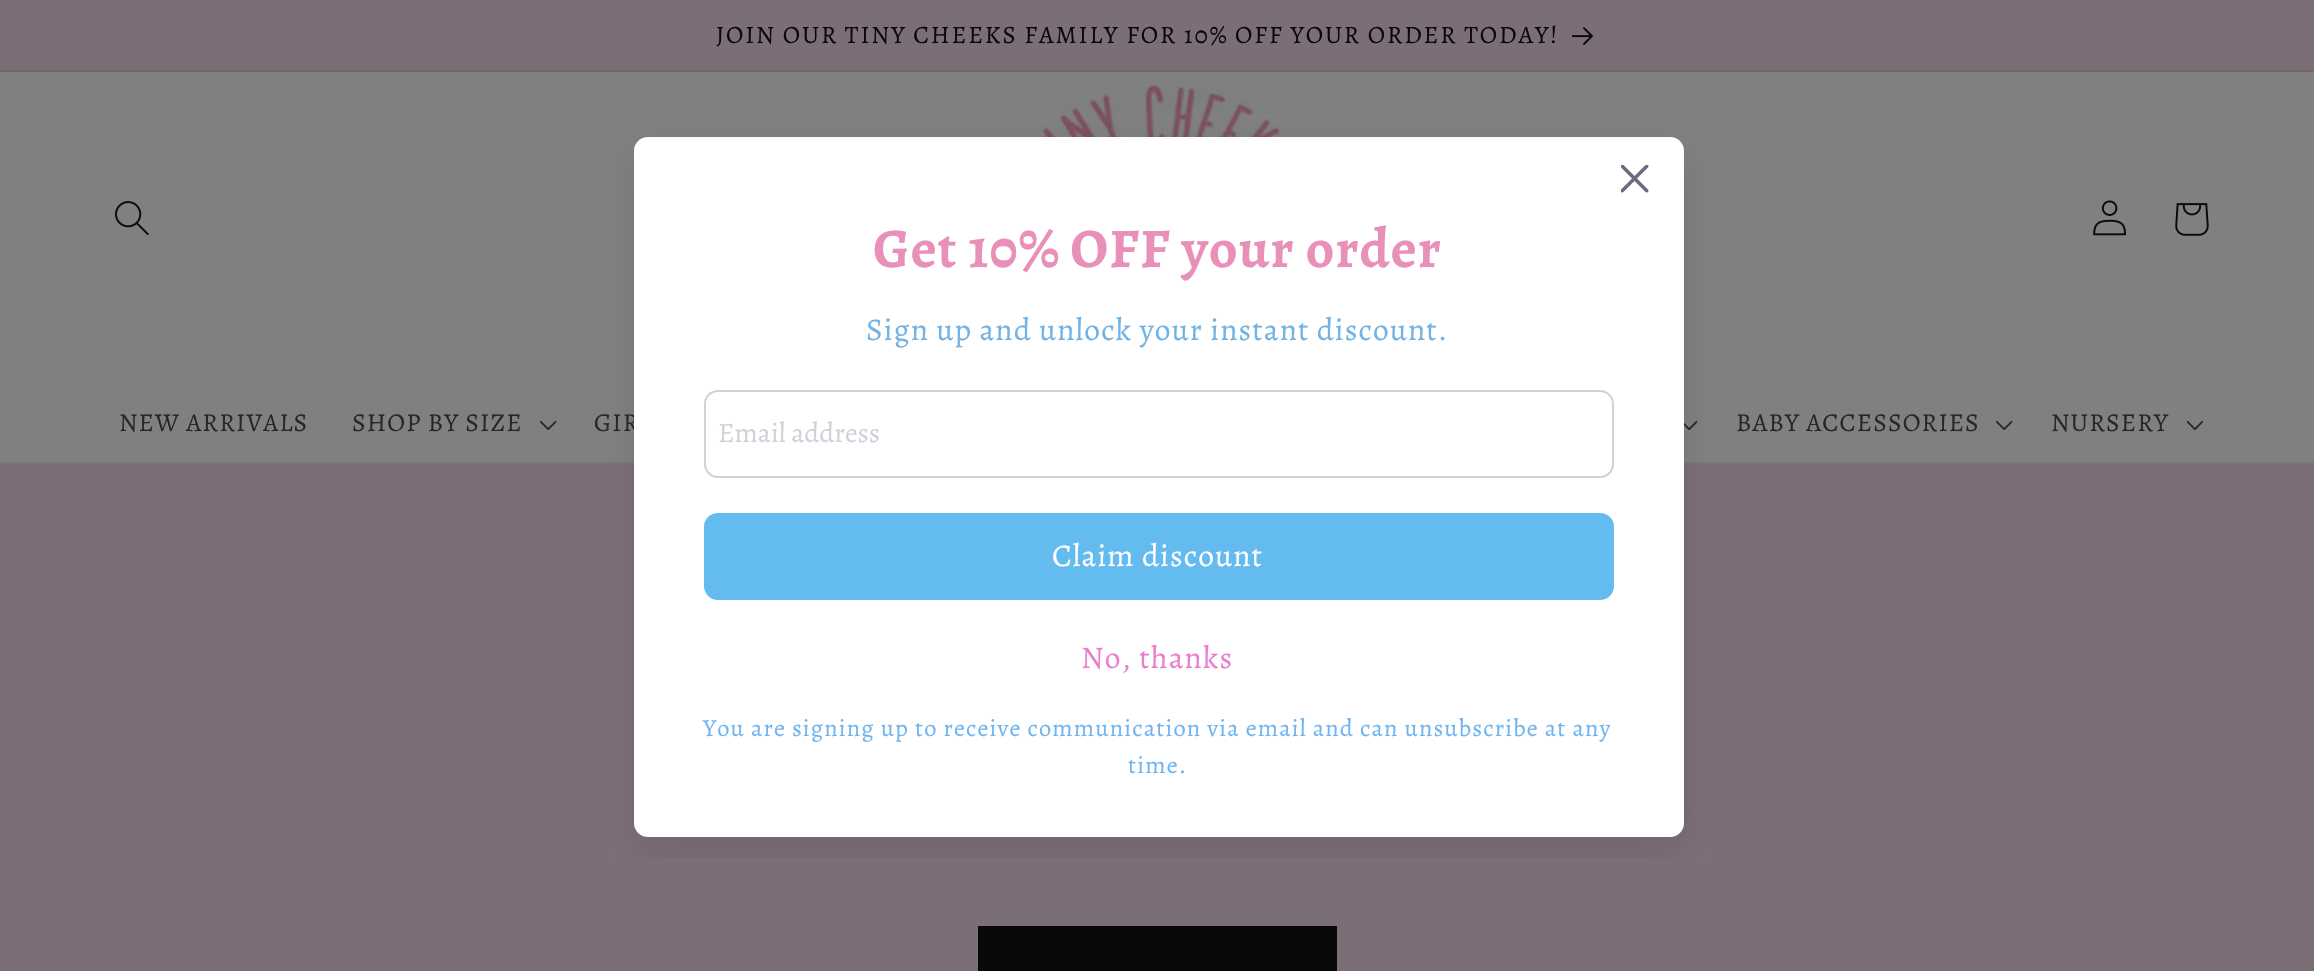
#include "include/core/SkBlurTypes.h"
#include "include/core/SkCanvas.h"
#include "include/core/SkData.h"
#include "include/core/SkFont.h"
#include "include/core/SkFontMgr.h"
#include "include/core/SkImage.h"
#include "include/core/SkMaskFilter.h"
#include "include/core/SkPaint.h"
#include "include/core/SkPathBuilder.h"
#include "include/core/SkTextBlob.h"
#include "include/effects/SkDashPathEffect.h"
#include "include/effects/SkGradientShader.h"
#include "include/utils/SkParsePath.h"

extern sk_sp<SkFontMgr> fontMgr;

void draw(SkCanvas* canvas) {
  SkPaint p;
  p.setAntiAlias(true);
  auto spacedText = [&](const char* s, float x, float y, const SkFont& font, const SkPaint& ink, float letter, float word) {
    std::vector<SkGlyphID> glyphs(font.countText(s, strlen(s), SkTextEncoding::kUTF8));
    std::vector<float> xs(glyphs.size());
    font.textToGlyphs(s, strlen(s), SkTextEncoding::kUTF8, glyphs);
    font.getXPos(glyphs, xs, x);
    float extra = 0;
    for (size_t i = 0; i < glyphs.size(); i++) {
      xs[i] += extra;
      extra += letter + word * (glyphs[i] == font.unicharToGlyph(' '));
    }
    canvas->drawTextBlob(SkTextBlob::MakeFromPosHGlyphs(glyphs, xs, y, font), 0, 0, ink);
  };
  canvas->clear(SkColorSetRGB(123, 110, 118));
  p.setColor(SkColorSetRGB(114, 102, 109));
  canvas->drawRect(SkRect::MakeLTRB(0, 70, 2314, 72), p);
  canvas->drawImageRect(SkImages::DeferredFromEncodedData(SkData::MakeFromFileName("images/1.png")), SkRect::MakeLTRB(1572, 27, 1593, 45), SkSamplingOptions());
  p.setColor(SkColorSetRGB(128, 128, 128));
  canvas->drawRect(SkRect::MakeLTRB(0, 72, 2314, 462), p);
  p.setColor(SkColorSetRGB(118, 118, 118));
  canvas->drawRect(SkRect::MakeLTRB(0, 462, 2314, 464), p);
  canvas->drawImageRect(SkImages::DeferredFromEncodedData(SkData::MakeFromFileName("images/3.png")), SkRect::MakeLTRB(1018, 85, 1299, 137), SkSamplingOptions());
  canvas->drawImageRect(SkImages::DeferredFromEncodedData(SkData::MakeFromFileName("images/8.png")), SkRect::MakeLTRB(1684, 421, 1698, 430), SkSamplingOptions());
  canvas->save();
  canvas->clipRect(SkRect::MakeLTRB(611, 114, 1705, 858));
  p.setColor(SkColorSetARGB(26, 18, 17, 39));
  p.setMaskFilter(SkMaskFilter::MakeBlur(kNormal_SkBlurStyle, 17.5f));
  canvas->drawRoundRect(SkRect::MakeLTRB(634, 151, 1684, 851), 14, 14, p);
  p.setMaskFilter(nullptr);
  canvas->restore();
  canvas->drawImageRect(SkImages::DeferredFromEncodedData(SkData::MakeFromFileName("images/4.png")), SkRect::MakeLTRB(115, 201, 149, 235), SkSamplingOptions());
  canvas->drawImageRect(SkImages::DeferredFromEncodedData(SkData::MakeFromFileName("images/5.png")), SkRect::MakeLTRB(2093, 200, 2127, 236), SkSamplingOptions());
  canvas->drawImageRect(SkImages::DeferredFromEncodedData(SkData::MakeFromFileName("images/6.png")), SkRect::MakeLTRB(2175, 203, 2209, 236), SkSamplingOptions());
  canvas->drawImageRect(SkImages::DeferredFromEncodedData(SkData::MakeFromFileName("images/7.png")), SkRect::MakeLTRB(540, 421, 557, 430), SkSamplingOptions());
  canvas->drawImageRect(SkImages::DeferredFromEncodedData(SkData::MakeFromFileName("images/7.png")), SkRect::MakeLTRB(1996, 421, 2013, 430), SkSamplingOptions());
  canvas->drawImageRect(SkImages::DeferredFromEncodedData(SkData::MakeFromFileName("images/9.png")), SkRect::MakeLTRB(2186, 421, 2203, 430), SkSamplingOptions());
  p.setColor(SkColorSetRGB(9, 9, 9));
  canvas->drawRect(SkRect::MakeLTRB(978, 926, 1337, 971), p);
  SkFont font1(fontMgr->matchFamilyStyle("Alegreya", SkFontStyle::Normal()), 25.05f);
  font1.setSubpixel(true);
  spacedText("JOIN OUR TINY CHEEKS FAMILY FOR 10% OFF YOUR ORDER TODAY!", 716, 43, font1, p, 1.85f, 0);
  SkFont font2(fontMgr->matchFamilyStyle("Alegreya", SkFontStyle::Normal()), 25.75f);
  font2.setSubpixel(true);
  p.setColor(SkColorSetRGB(39, 39, 39));
  spacedText("NEW ARRIVALS", 119, 431, font2, p, 1.1f, 0);
  spacedText("SHOP BY SIZE", 352, 431, font2, p, 1.1f, 0);
  spacedText("GIR", 594, 431, font2, p, 1.1f, 0);
  p.setColor(SK_ColorWHITE);
  canvas->drawRoundRect(SkRect::MakeLTRB(634, 137, 1684, 837), 14, 14, p);
  canvas->drawImageRect(SkImages::DeferredFromEncodedData(SkData::MakeFromFileName("images/2.png")), SkRect::MakeLTRB(1621, 165, 1649, 193), SkSamplingOptions());
  p.setStyle(SkPaint::kStroke_Style);
  p.setStrokeWidth(2);
  p.setColor(SkColorSetRGB(209, 209, 219));
  canvas->drawRoundRect(SkRect::MakeLTRB(705, 391, 1613, 477), 13, 13, p);
  SkFont font3(fontMgr->matchFamilyStyle("Alegreya", SkFontStyle::Normal()), 28);
  font3.setSubpixel(true);
  p.setStyle(SkPaint::kFill_Style);
  canvas->drawString("Email address", 718, 442, font3, p);
  p.setColor(SkColorSetRGB(100, 187, 240));
  canvas->drawRoundRect(SkRect::MakeLTRB(704, 513, 1614, 600), 14, 14, p);
  SkFont font4(fontMgr->matchFamilyStyle("Alegreya", SkFontStyle::Normal()), 31.5f);
  font4.setSubpixel(true);
  p.setColor(SK_ColorWHITE);
  spacedText("Claim discount", 1052, 566, font4, p, 1.1f, 0);
  SkFont font5(fontMgr->matchFamilyStyle("Alegreya", SkFontStyle::Normal()), 24.5f);
  font5.setSubpixel(true);
  p.setColor(SkColorSetRGB(111, 181, 242));
  spacedText("time.", 1128, 773, font5, p, 1.1f, 0);
  spacedText("You are signing up to receive communication via email and can unsubscribe at any", 703, 736, font5, p, 1.1f, 0);
  p.setColor(SkColorSetRGB(235, 127, 205));
  spacedText("No, thanks", 1081, 668, font4, p, 1.1f, 0);
  p.setColor(SkColorSetRGB(113, 179, 229));
  spacedText("Sign up and unlock your instant discount.", 866, 340, font4, p, 1.1f, 0);
  SkFont font6(fontMgr->matchFamilyStyle("Alegreya", SkFontStyle::Bold()), 56);
  font6.setSubpixel(true);
  p.setColor(SkColorSetRGB(232, 144, 185));
  spacedText("Get 10% OFF your order", 873, 267, font6, p, 1.1f, 0);
  p.setColor(SkColorSetRGB(39, 39, 39));
  spacedText("BABY ACCESSORIES", 1736, 431, font2, p, 1.1f, 0);
  spacedText("NURSERY", 2051, 431, font2, p, 1.1f, 0);
}
